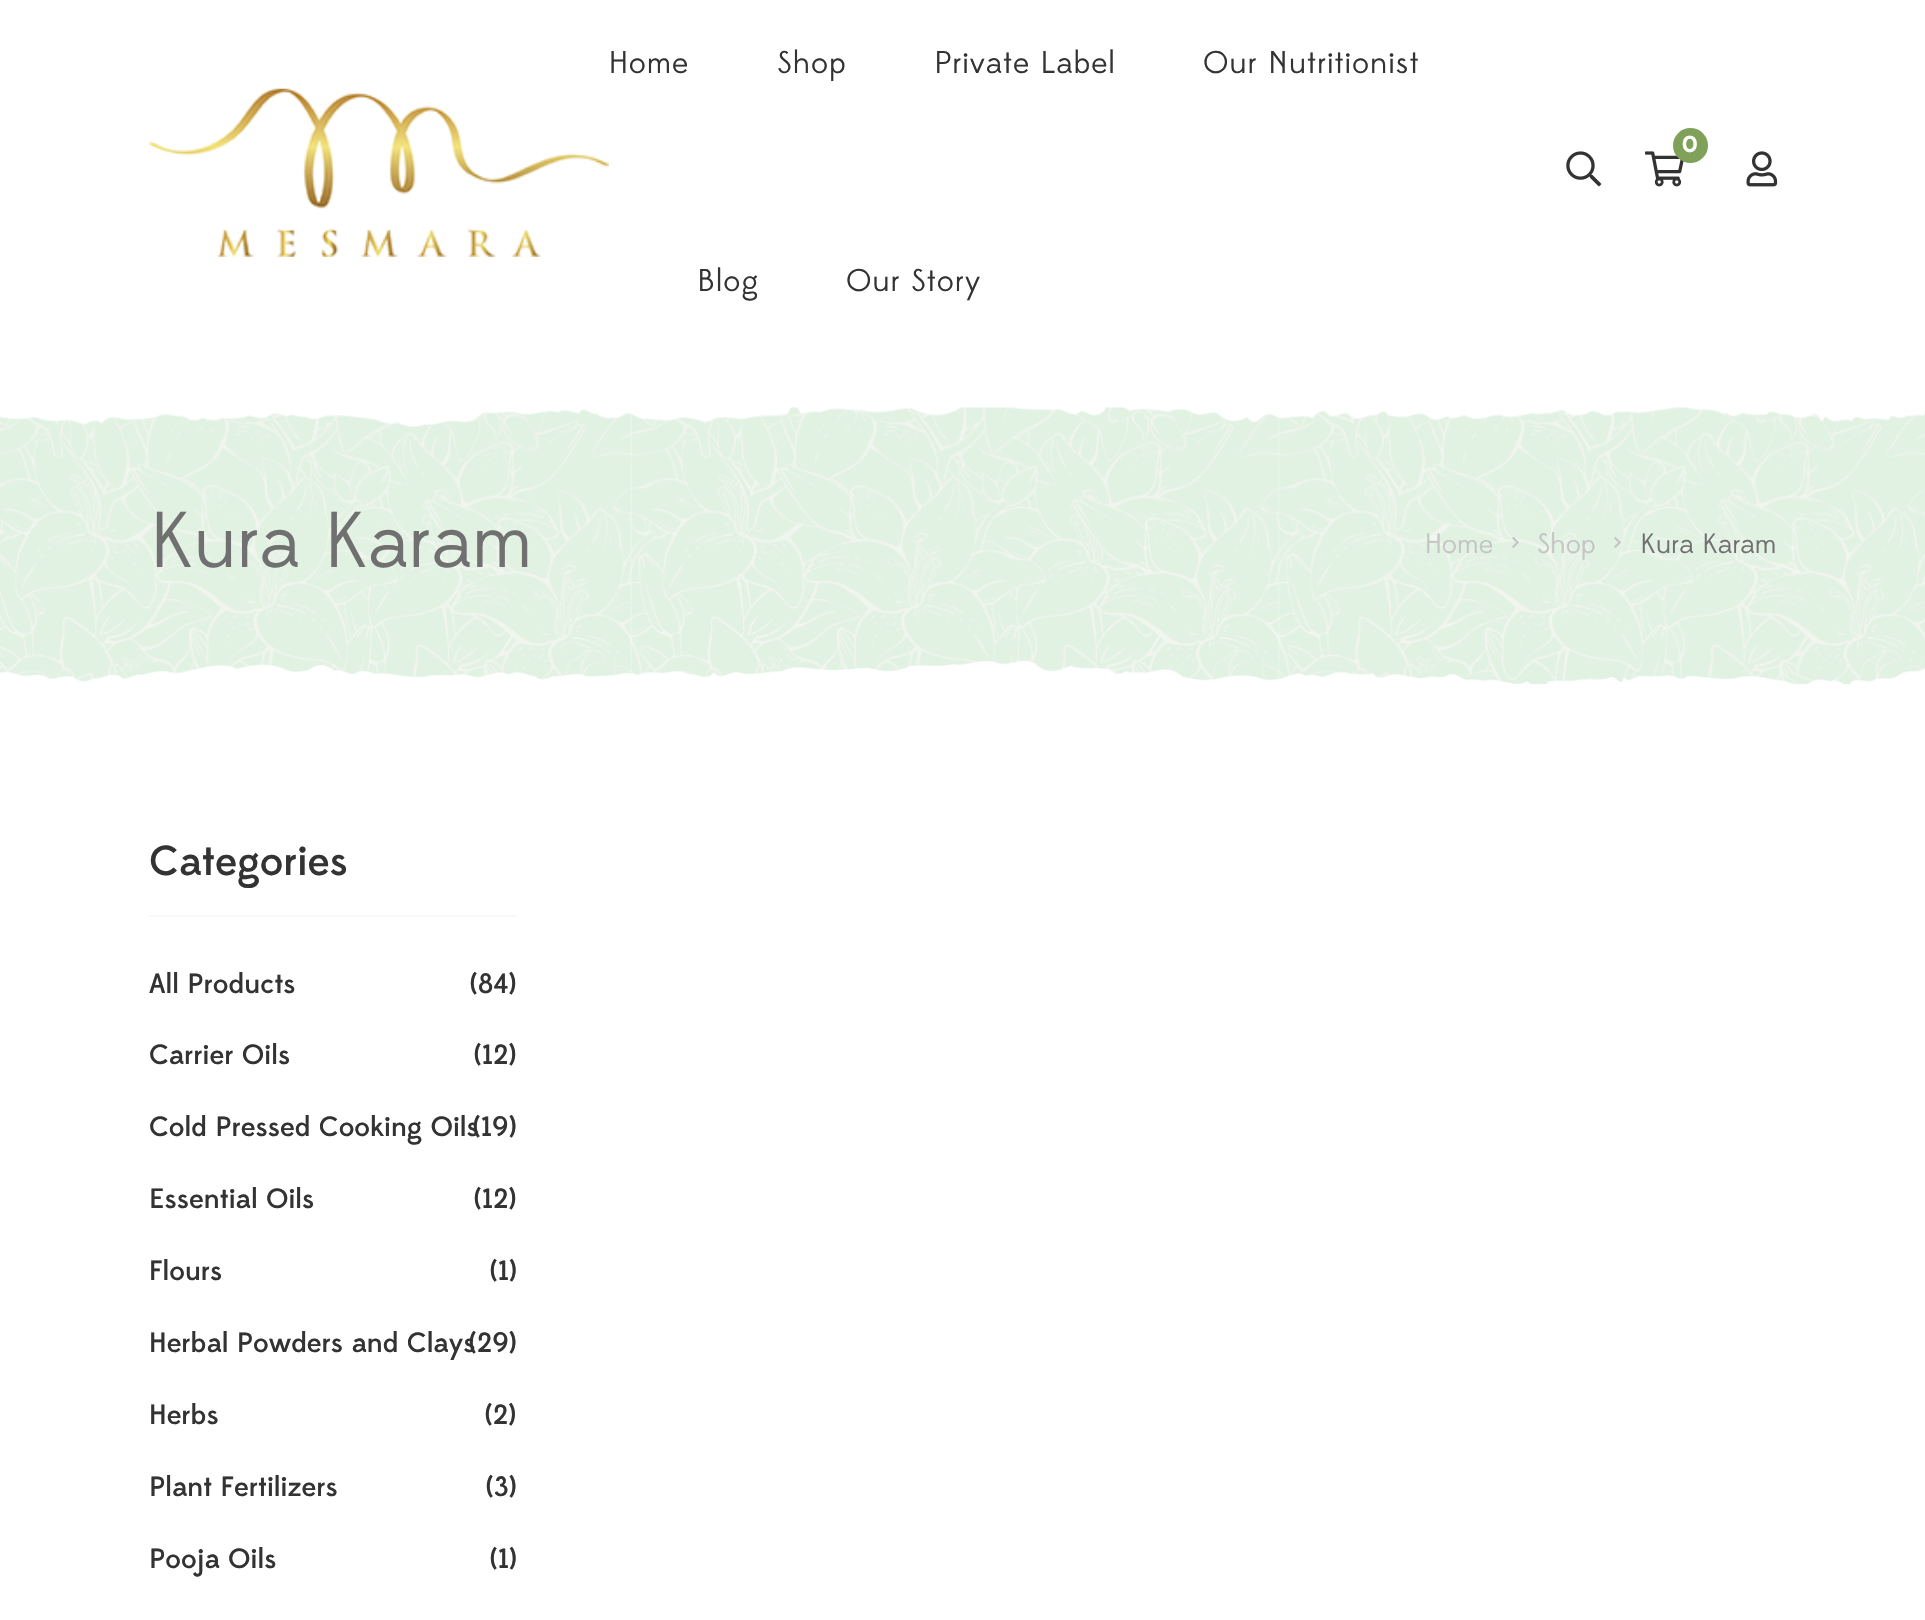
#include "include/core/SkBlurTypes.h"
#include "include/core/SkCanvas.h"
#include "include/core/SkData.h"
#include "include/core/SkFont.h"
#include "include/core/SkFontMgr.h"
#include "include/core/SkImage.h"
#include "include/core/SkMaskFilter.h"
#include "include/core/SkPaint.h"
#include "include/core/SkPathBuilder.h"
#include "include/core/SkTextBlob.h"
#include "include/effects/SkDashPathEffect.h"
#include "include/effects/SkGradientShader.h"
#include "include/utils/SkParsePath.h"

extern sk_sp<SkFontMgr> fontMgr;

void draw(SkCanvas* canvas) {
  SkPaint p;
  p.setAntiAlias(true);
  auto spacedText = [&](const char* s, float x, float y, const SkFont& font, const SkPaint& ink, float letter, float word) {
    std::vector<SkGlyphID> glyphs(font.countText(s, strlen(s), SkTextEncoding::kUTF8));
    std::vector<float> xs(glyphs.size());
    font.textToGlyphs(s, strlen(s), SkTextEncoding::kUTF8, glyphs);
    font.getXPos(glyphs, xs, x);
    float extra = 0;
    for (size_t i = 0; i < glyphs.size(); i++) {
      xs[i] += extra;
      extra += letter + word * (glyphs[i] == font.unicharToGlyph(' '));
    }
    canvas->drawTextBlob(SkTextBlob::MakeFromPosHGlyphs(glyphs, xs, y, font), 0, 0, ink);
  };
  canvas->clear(SK_ColorWHITE);
  canvas->drawImageRect(SkImages::DeferredFromEncodedData(SkData::MakeFromFileName("images/1.png")), SkRect::MakeLTRB(148, 88, 609, 257), SkSamplingOptions());
  canvas->drawImageRect(SkImages::DeferredFromEncodedData(SkData::MakeFromFileName("images/2.png")), SkRect::MakeLTRB(1645, 151, 1684, 187), SkSamplingOptions());
  p.setColor(SkColorSetRGB(127, 161, 90));
  canvas->drawCircle(1690.5f, 145.5f, 17.5f, p);
  canvas->drawImageRect(SkImages::DeferredFromEncodedData(SkData::MakeFromFileName("images/3.png")), SkRect::MakeLTRB(1566, 151, 1602, 187), SkSamplingOptions());
  canvas->drawImageRect(SkImages::DeferredFromEncodedData(SkData::MakeFromFileName("images/4.png")), SkRect::MakeLTRB(1746, 151, 1778, 187), SkSamplingOptions());
  canvas->drawImageRect(SkImages::DeferredFromEncodedData(SkData::MakeFromFileName("images/5.png")), SkRect::MakeLTRB(0, 407, 1925, 685), SkSamplingOptions());
  p.setColor(SkColorSetRGB(248, 248, 248));
  canvas->drawRect(SkRect::MakeLTRB(149, 915, 516, 917), p);
  SkFont font1(fontMgr->matchFamilyStyle("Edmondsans", SkFontStyle::Normal()), 31.5f);
  font1.setSubpixel(true);
  p.setColor(SkColorSetRGB(51, 51, 51));
  spacedText("Home", 609, 73, font1, p, 0.9f, 0);
  spacedText("Shop", 777, 73, font1, p, 0.9f, 0);
  spacedText("Private Label", 934, 73, font1, p, 0.9f, 0);
  spacedText("Our Nutritionist", 1203, 73, font1, p, 0.9f, 0);
  spacedText("Blog", 697, 291, font1, p, 0.9f, 0);
  spacedText("Our Story", 846, 291, font1, p, 0.9f, 0);
  SkFont font2(fontMgr->matchFamilyStyle("Edmondsans", SkFontStyle::Bold()), 23);
  font2.setSubpixel(true);
  p.setColor(SK_ColorWHITE);
  canvas->drawString("0", 1682, 152, font2, p);
  SkFont font3(fontMgr->matchFamilyStyle("Edmondsans", SkFontStyle::Normal()), 78.75f);
  font3.setSubpixel(true);
  p.setColor(SkColorSetRGB(112, 112, 112));
  canvas->drawString("Kura Karam", 149, 567, font3, p);
  SkFont font4(fontMgr->matchFamilyStyle("Edmondsans", SkFontStyle::Normal()), 28);
  font4.setSubpixel(true);
  p.setColor(SkColorSetRGB(196, 196, 196));
  canvas->drawString("Home", 1425, 553, font4, p);
  canvas->drawString(">", 1511, 553, font4, p);
  canvas->drawString("Shop", 1537, 553, font4, p);
  canvas->drawString(">", 1613, 553, font4, p);
  p.setColor(SkColorSetRGB(112, 112, 112));
  canvas->drawString("Kura Karam", 1640, 553, font4, p);
  SkFont font5(fontMgr->matchFamilyStyle("Edmondsans", SkFontStyle(500, SkFontStyle::kNormal_Width, SkFontStyle::kUpright_Slant)), 42);
  font5.setSubpixel(true);
  p.setColor(SkColorSetRGB(51, 51, 51));
  canvas->drawString("Categories", 149, 875, font5, p);
  SkFont font6(fontMgr->matchFamilyStyle("Edmondsans", SkFontStyle(500, SkFontStyle::kNormal_Width, SkFontStyle::kUpright_Slant)), 28);
  font6.setSubpixel(true);
  canvas->drawString("All Products", 149, 993, font6, p);
  canvas->drawString("(84)", 470, 993, font6, p);
  canvas->drawString("Carrier Oils", 149, 1064, font6, p);
  canvas->drawString("(12)", 474, 1064, font6, p);
  canvas->drawString("Cold Pressed Cooking Oils", 149, 1136, font6, p);
  canvas->drawString("(19)", 473, 1136, font6, p);
  canvas->drawString("Essential Oils", 149, 1208, font6, p);
  canvas->drawString("(12)", 474, 1208, font6, p);
  canvas->drawString("Flours", 149, 1280, font6, p);
  canvas->drawString("(1)", 490, 1280, font6, p);
  canvas->drawString("Herbal Powders and Clays", 149, 1352, font6, p);
  canvas->drawString("(29)", 469, 1352, font6, p);
  canvas->drawString("Herbs", 149, 1424, font6, p);
  canvas->drawString("(2)", 485, 1424, font6, p);
  canvas->drawString("Plant Fertilizers", 149, 1496, font6, p);
  canvas->drawString("(3)", 486, 1496, font6, p);
  canvas->drawString("Pooja Oils", 149, 1568, font6, p);
  canvas->drawString("(1)", 490, 1568, font6, p);
}
